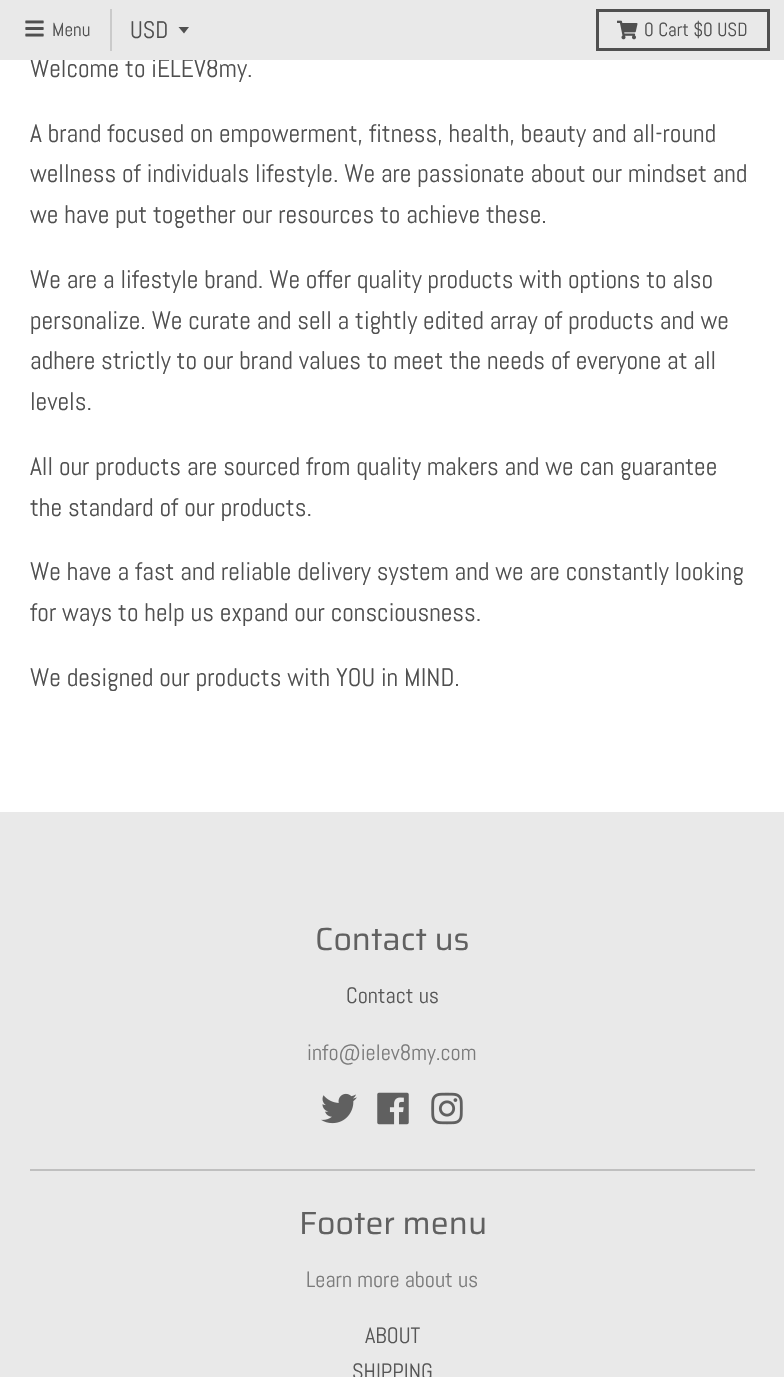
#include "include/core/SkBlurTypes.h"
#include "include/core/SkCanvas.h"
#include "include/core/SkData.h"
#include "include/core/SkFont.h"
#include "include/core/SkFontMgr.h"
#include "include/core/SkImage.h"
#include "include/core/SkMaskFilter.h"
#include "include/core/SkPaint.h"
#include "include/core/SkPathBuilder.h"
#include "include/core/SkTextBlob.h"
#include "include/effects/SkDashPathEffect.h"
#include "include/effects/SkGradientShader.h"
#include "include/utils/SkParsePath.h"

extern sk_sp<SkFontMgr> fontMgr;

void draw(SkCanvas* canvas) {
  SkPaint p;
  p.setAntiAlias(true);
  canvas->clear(SK_ColorWHITE);
  p.setColor(SkColorSetRGB(233, 233, 233));
  canvas->drawRect(SkRect::MakeLTRB(0, 812, 784, 1377), p);
  p.setColor(SkColorSetRGB(191, 191, 191));
  canvas->drawRect(SkRect::MakeLTRB(30, 1169, 755, 1171), p);
  canvas->drawImageRect(SkImages::DeferredFromEncodedData(SkData::MakeFromFileName("images/3.png")), SkRect::MakeLTRB(321, 1093, 357, 1124), SkSamplingOptions());
  canvas->drawImageRect(SkImages::DeferredFromEncodedData(SkData::MakeFromFileName("images/4.png")), SkRect::MakeLTRB(377, 1092, 409, 1125), SkSamplingOptions());
  canvas->drawImageRect(SkImages::DeferredFromEncodedData(SkData::MakeFromFileName("images/5.png")), SkRect::MakeLTRB(431, 1092, 463, 1125), SkSamplingOptions());
  SkFont font1(fontMgr->matchFamilyStyle("Abel", SkFontStyle::Normal()), 25.5f);
  font1.setSubpixel(true);
  p.setColor(SkColorSetRGB(79, 79, 79));
  canvas->drawString("Welcome to iELEV8my.", 30, 77, font1, p);
  p.setColor(SkColorSetRGB(233, 233, 233));
  canvas->drawRect(SkRect::MakeLTRB(0, 0, 784, 60), p);
  p.setStyle(SkPaint::kStroke_Style);
  p.setStrokeWidth(3);
  p.setColor(SkColorSetRGB(80, 80, 80));
  canvas->drawRect(SkRect::MakeLTRB(597.5f, 10.5f, 768.5f, 49.5f), p);
  canvas->drawImageRect(SkImages::DeferredFromEncodedData(SkData::MakeFromFileName("images/2.png")), SkRect::MakeLTRB(617, 20, 638, 40), SkSamplingOptions());
  SkFont font2(fontMgr->matchFamilyStyle("Abel", SkFontStyle::Normal()), 24);
  font2.setSubpixel(true);
  p.setStyle(SkPaint::kFill_Style);
  p.setColor(SkColorSetRGB(79, 79, 79));
  canvas->drawString("USD", 130, 38, font2, p);
  p.setColor(SkColorSetRGB(80, 80, 80));
  canvas->drawPath(SkPathBuilder().moveTo(178.5f, 27).lineTo(184, 33.5f).lineTo(189, 27).close().detach(), p);
  canvas->drawImageRect(SkImages::DeferredFromEncodedData(SkData::MakeFromFileName("images/1.png")), SkRect::MakeLTRB(25, 20, 44, 37), SkSamplingOptions());
  SkFont font3(fontMgr->matchFamilyStyle("Abel", SkFontStyle::Normal()), 19);
  font3.setSubpixel(true);
  p.setColor(SkColorSetRGB(79, 79, 79));
  canvas->drawString("0 Cart $0 USD", 644, 36, font3, p);
  canvas->drawString("Menu", 52, 36, font3, p);
  p.setColor(SkColorSetRGB(202, 202, 202));
  canvas->drawRect(SkRect::MakeLTRB(110, 9, 112, 51), p);
  p.setColor(SkColorSetRGB(79, 79, 79));
  canvas->drawString("A brand focused on empowerment, fitness, health, beauty and all-round", 30, 142, font1, p);
  canvas->drawString("wellness of individuals lifestyle. We are passionate about our mindset and", 30, 182, font1, p);
  canvas->drawString("we have put together our resources to achieve these.", 30, 223, font1, p);
  canvas->drawString("We are a lifestyle brand. We offer quality products with options to also", 30, 288, font1, p);
  canvas->drawString("personalize. We curate and sell a tightly edited array of products and we", 30, 329, font1, p);
  canvas->drawString("adhere strictly to our brand values to meet the needs of everyone at all", 30, 369, font1, p);
  canvas->drawString("levels.", 30, 410, font1, p);
  canvas->drawString("All our products are sourced from quality makers and we can guarantee", 30, 475, font1, p);
  canvas->drawString("the standard of our products.", 30, 516, font1, p);
  canvas->drawString("We have a fast and reliable delivery system and we are constantly looking", 30, 580, font1, p);
  canvas->drawString("for ways to help us expand our consciousness.", 30, 621, font1, p);
  canvas->drawString("We designed our products with YOU in MIND.", 30, 686, font1, p);
  SkFont font4(fontMgr->matchFamilyStyle("Saira", SkFontStyle::Normal()), 32);
  font4.setSubpixel(true);
  p.setColor(SkColorSetRGB(96, 96, 96));
  canvas->drawString("Contact us", 315, 950, font4, p);
  SkFont font5(fontMgr->matchFamilyStyle("Abel", SkFontStyle::Normal()), 22.25f);
  font5.setSubpixel(true);
  p.setColor(SkColorSetRGB(86, 86, 86));
  canvas->drawString("Contact us", 346, 1003, font5, p);
  p.setColor(SkColorSetRGB(123, 123, 123));
  canvas->drawString("info@ielev8my.com", 307, 1060, font5, p);
  p.setColor(SkColorSetRGB(96, 96, 96));
  canvas->drawString("Footer menu", 299, 1234, font4, p);
  p.setColor(SkColorSetRGB(123, 123, 123));
  canvas->drawString("Learn more about us", 306, 1287, font5, p);
  p.setColor(SkColorSetRGB(86, 86, 86));
  canvas->drawString("ABOUT", 365, 1343, font5, p);
  canvas->drawString("SHIPPING", 352, 1379, font5, p);
}
